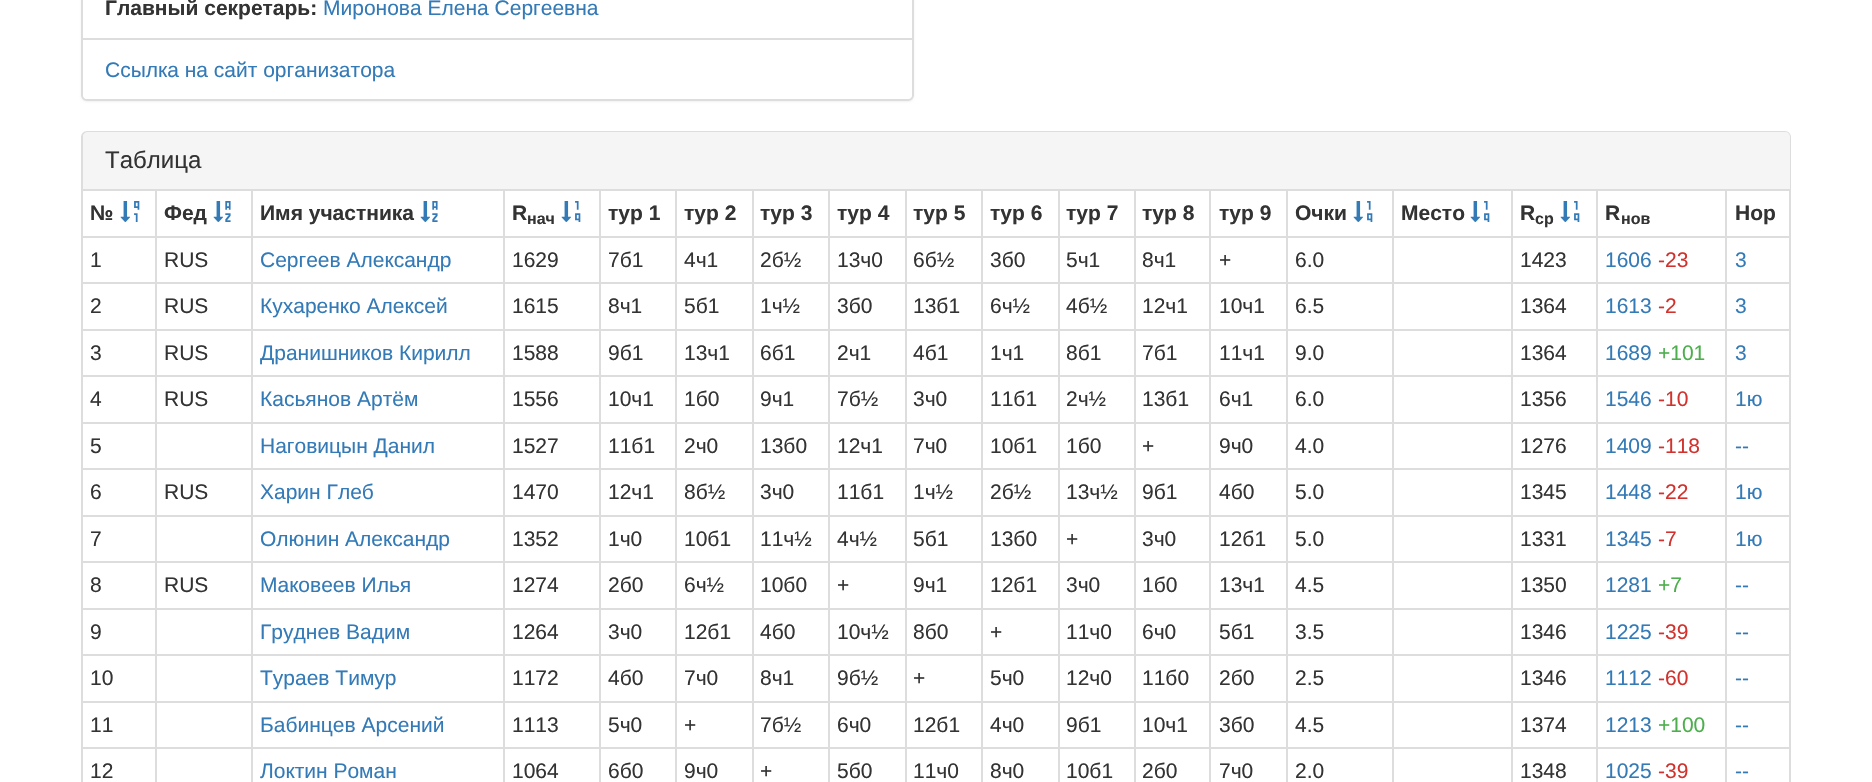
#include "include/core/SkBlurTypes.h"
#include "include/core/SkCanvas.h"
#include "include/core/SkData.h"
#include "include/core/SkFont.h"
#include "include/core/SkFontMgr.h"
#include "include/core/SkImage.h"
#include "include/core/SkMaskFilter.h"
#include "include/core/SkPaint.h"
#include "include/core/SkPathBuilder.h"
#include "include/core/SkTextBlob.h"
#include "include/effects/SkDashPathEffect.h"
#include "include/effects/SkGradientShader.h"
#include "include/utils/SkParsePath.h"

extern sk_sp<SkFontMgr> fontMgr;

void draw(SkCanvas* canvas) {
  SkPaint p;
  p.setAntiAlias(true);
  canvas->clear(SK_ColorWHITE);
  p.setColor(SkColorSetARGB(13, 0, 0, 0));
  p.setMaskFilter(SkMaskFilter::MakeBlur(kNormal_SkBlurStyle, 1));
  canvas->drawRoundRect(SkRect::MakeLTRB(81, -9, 914, 102), 6, 6, p);
  p.setMaskFilter(nullptr);
  p.setColor(SK_ColorWHITE);
  canvas->drawRoundRect(SkRect::MakeLTRB(82, -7, 913, 100), 5, 5, p);
  p.setStyle(SkPaint::kStroke_Style);
  p.setStrokeWidth(2);
  p.setColor(SkColorSetRGB(221, 221, 221));
  canvas->drawRoundRect(SkRect::MakeLTRB(82, -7, 913, 100), 5, 5, p);
  p.setStyle(SkPaint::kFill_Style);
  p.setColor(SK_ColorWHITE);
  canvas->drawPath(SkPathBuilder().moveTo(83, 38).lineTo(912, 38).lineTo(912, 94).cubicTo(912, 97, 910, 99, 907, 99).lineTo(88, 99).cubicTo(85, 99, 83, 97, 83, 94).close().detach(), p);
  p.setColor(SkColorSetRGB(221, 221, 221));
  canvas->drawRect(SkRect::MakeLTRB(83, 38, 912, 40), p);
  p.setStyle(SkPaint::kStroke_Style);
  canvas->drawRoundRect(SkRect::MakeLTRB(82, 132, 1790, 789), 5, 5, p);
  p.setStyle(SkPaint::kFill_Style);
  p.setColor(SkColorSetRGB(245, 245, 245));
  canvas->drawPath(SkPathBuilder().moveTo(88, 132).lineTo(1785, 132).cubicTo(1788, 132, 1790, 134, 1790, 137).lineTo(1790, 191).lineTo(83, 191).lineTo(83, 137).cubicTo(83, 134, 85, 132, 88, 132).close().detach(), p);
  p.setColor(SkColorSetRGB(221, 221, 221));
  canvas->drawRect(SkRect::MakeLTRB(83, 189, 1790, 191), p);
  canvas->drawImageRect(SkImages::DeferredFromEncodedData(SkData::MakeFromFileName("images/1.png")), SkRect::MakeLTRB(120, 201, 140, 222), SkSamplingOptions());
  canvas->drawRect(SkRect::MakeLTRB(1725, 236, 1791, 238), p);
  canvas->drawRect(SkRect::MakeLTRB(1725, 282, 1791, 284), p);
  canvas->drawRect(SkRect::MakeLTRB(1725, 329, 1791, 331), p);
  canvas->drawRect(SkRect::MakeLTRB(1725, 375, 1791, 377), p);
  canvas->drawRect(SkRect::MakeLTRB(1725, 422, 1791, 424), p);
  canvas->drawRect(SkRect::MakeLTRB(1725, 468, 1791, 470), p);
  canvas->drawRect(SkRect::MakeLTRB(1725, 515, 1791, 517), p);
  canvas->drawRect(SkRect::MakeLTRB(1725, 561, 1791, 563), p);
  canvas->drawRect(SkRect::MakeLTRB(1725, 608, 1791, 610), p);
  canvas->drawRect(SkRect::MakeLTRB(1725, 654, 1791, 656), p);
  canvas->drawRect(SkRect::MakeLTRB(1725, 701, 1791, 703), p);
  canvas->drawRect(SkRect::MakeLTRB(1725, 747, 1791, 749), p);
  canvas->drawRect(SkRect::MakeLTRB(1725, 747, 1727, 782), p);
  canvas->drawRect(SkRect::MakeLTRB(1596, 747, 1727, 749), p);
  canvas->drawRect(SkRect::MakeLTRB(1725, 701, 1727, 749), p);
  canvas->drawRect(SkRect::MakeLTRB(1596, 701, 1727, 703), p);
  canvas->drawRect(SkRect::MakeLTRB(1725, 654, 1727, 702), p);
  canvas->drawRect(SkRect::MakeLTRB(1596, 654, 1727, 656), p);
  canvas->drawRect(SkRect::MakeLTRB(1725, 608, 1727, 656), p);
  canvas->drawRect(SkRect::MakeLTRB(1596, 608, 1727, 610), p);
  canvas->drawRect(SkRect::MakeLTRB(1725, 561, 1727, 609), p);
  canvas->drawRect(SkRect::MakeLTRB(1596, 561, 1727, 563), p);
  canvas->drawRect(SkRect::MakeLTRB(1725, 515, 1727, 563), p);
  canvas->drawRect(SkRect::MakeLTRB(1596, 515, 1727, 517), p);
  canvas->drawRect(SkRect::MakeLTRB(1725, 468, 1727, 516), p);
  canvas->drawRect(SkRect::MakeLTRB(1596, 468, 1727, 470), p);
  canvas->drawRect(SkRect::MakeLTRB(1725, 422, 1727, 470), p);
  canvas->drawRect(SkRect::MakeLTRB(1596, 422, 1727, 424), p);
  canvas->drawRect(SkRect::MakeLTRB(1725, 375, 1727, 423), p);
  canvas->drawRect(SkRect::MakeLTRB(1596, 375, 1727, 377), p);
  canvas->drawRect(SkRect::MakeLTRB(1725, 329, 1727, 377), p);
  canvas->drawRect(SkRect::MakeLTRB(1596, 329, 1727, 331), p);
  canvas->drawRect(SkRect::MakeLTRB(1725, 282, 1727, 330), p);
  canvas->drawRect(SkRect::MakeLTRB(1596, 282, 1727, 284), p);
  canvas->drawRect(SkRect::MakeLTRB(1725, 236, 1727, 284), p);
  canvas->drawRect(SkRect::MakeLTRB(1596, 236, 1727, 238), p);
  canvas->drawRect(SkRect::MakeLTRB(1596, 747, 1598, 782), p);
  canvas->drawRect(SkRect::MakeLTRB(1511, 747, 1598, 749), p);
  canvas->drawRect(SkRect::MakeLTRB(1596, 701, 1598, 749), p);
  canvas->drawRect(SkRect::MakeLTRB(1511, 701, 1598, 703), p);
  canvas->drawRect(SkRect::MakeLTRB(1596, 654, 1598, 702), p);
  canvas->drawRect(SkRect::MakeLTRB(1511, 654, 1598, 656), p);
  canvas->drawRect(SkRect::MakeLTRB(1596, 608, 1598, 656), p);
  canvas->drawRect(SkRect::MakeLTRB(1511, 608, 1598, 610), p);
  canvas->drawRect(SkRect::MakeLTRB(1596, 561, 1598, 609), p);
  canvas->drawRect(SkRect::MakeLTRB(1511, 561, 1598, 563), p);
  canvas->drawRect(SkRect::MakeLTRB(1596, 515, 1598, 563), p);
  canvas->drawRect(SkRect::MakeLTRB(1511, 515, 1598, 517), p);
  canvas->drawRect(SkRect::MakeLTRB(1596, 468, 1598, 516), p);
  canvas->drawRect(SkRect::MakeLTRB(1511, 468, 1598, 470), p);
  canvas->drawRect(SkRect::MakeLTRB(1596, 422, 1598, 470), p);
  canvas->drawRect(SkRect::MakeLTRB(1511, 422, 1598, 424), p);
  canvas->drawRect(SkRect::MakeLTRB(1596, 375, 1598, 423), p);
  canvas->drawRect(SkRect::MakeLTRB(1511, 375, 1598, 377), p);
  canvas->drawRect(SkRect::MakeLTRB(1596, 329, 1598, 377), p);
  canvas->drawRect(SkRect::MakeLTRB(1511, 329, 1598, 331), p);
  canvas->drawRect(SkRect::MakeLTRB(1596, 282, 1598, 330), p);
  canvas->drawRect(SkRect::MakeLTRB(1511, 282, 1598, 284), p);
  canvas->drawRect(SkRect::MakeLTRB(1596, 236, 1598, 284), p);
  canvas->drawRect(SkRect::MakeLTRB(1511, 236, 1598, 238), p);
  canvas->drawRect(SkRect::MakeLTRB(1511, 747, 1513, 782), p);
  canvas->drawRect(SkRect::MakeLTRB(1392, 747, 1512, 749), p);
  canvas->drawRect(SkRect::MakeLTRB(1511, 701, 1513, 749), p);
  canvas->drawRect(SkRect::MakeLTRB(1392, 701, 1512, 703), p);
  canvas->drawRect(SkRect::MakeLTRB(1511, 654, 1513, 702), p);
  canvas->drawRect(SkRect::MakeLTRB(1392, 654, 1512, 656), p);
  canvas->drawRect(SkRect::MakeLTRB(1511, 608, 1513, 656), p);
  canvas->drawRect(SkRect::MakeLTRB(1392, 608, 1512, 610), p);
  canvas->drawRect(SkRect::MakeLTRB(1511, 561, 1513, 609), p);
  canvas->drawRect(SkRect::MakeLTRB(1392, 561, 1512, 563), p);
  canvas->drawRect(SkRect::MakeLTRB(1511, 515, 1513, 563), p);
  canvas->drawRect(SkRect::MakeLTRB(1392, 515, 1512, 517), p);
  canvas->drawRect(SkRect::MakeLTRB(1511, 468, 1513, 516), p);
  canvas->drawRect(SkRect::MakeLTRB(1392, 468, 1512, 470), p);
  canvas->drawRect(SkRect::MakeLTRB(1511, 422, 1513, 470), p);
  canvas->drawRect(SkRect::MakeLTRB(1392, 422, 1512, 424), p);
  canvas->drawRect(SkRect::MakeLTRB(1511, 375, 1513, 423), p);
  canvas->drawRect(SkRect::MakeLTRB(1392, 375, 1512, 377), p);
  canvas->drawRect(SkRect::MakeLTRB(1511, 329, 1513, 377), p);
  canvas->drawRect(SkRect::MakeLTRB(1392, 329, 1512, 331), p);
  canvas->drawRect(SkRect::MakeLTRB(1511, 282, 1513, 330), p);
  canvas->drawRect(SkRect::MakeLTRB(1392, 282, 1512, 284), p);
  canvas->drawRect(SkRect::MakeLTRB(1511, 236, 1513, 284), p);
  canvas->drawRect(SkRect::MakeLTRB(1392, 236, 1512, 238), p);
  canvas->drawRect(SkRect::MakeLTRB(1392, 747, 1394, 782), p);
  canvas->drawRect(SkRect::MakeLTRB(1286, 747, 1394, 749), p);
  canvas->drawRect(SkRect::MakeLTRB(1392, 701, 1394, 749), p);
  canvas->drawRect(SkRect::MakeLTRB(1286, 701, 1394, 703), p);
  canvas->drawRect(SkRect::MakeLTRB(1392, 654, 1394, 702), p);
  canvas->drawRect(SkRect::MakeLTRB(1286, 654, 1394, 656), p);
  canvas->drawRect(SkRect::MakeLTRB(1392, 608, 1394, 656), p);
  canvas->drawRect(SkRect::MakeLTRB(1286, 608, 1394, 610), p);
  canvas->drawRect(SkRect::MakeLTRB(1392, 561, 1394, 609), p);
  canvas->drawRect(SkRect::MakeLTRB(1286, 561, 1394, 563), p);
  canvas->drawRect(SkRect::MakeLTRB(1392, 515, 1394, 563), p);
  canvas->drawRect(SkRect::MakeLTRB(1286, 515, 1394, 517), p);
  canvas->drawRect(SkRect::MakeLTRB(1392, 468, 1394, 516), p);
  canvas->drawRect(SkRect::MakeLTRB(1286, 468, 1394, 470), p);
  canvas->drawRect(SkRect::MakeLTRB(1392, 422, 1394, 470), p);
  canvas->drawRect(SkRect::MakeLTRB(1286, 422, 1394, 424), p);
  canvas->drawRect(SkRect::MakeLTRB(1392, 375, 1394, 423), p);
  canvas->drawRect(SkRect::MakeLTRB(1286, 375, 1394, 377), p);
  canvas->drawRect(SkRect::MakeLTRB(1392, 329, 1394, 377), p);
  canvas->drawRect(SkRect::MakeLTRB(1286, 329, 1394, 331), p);
  canvas->drawRect(SkRect::MakeLTRB(1392, 282, 1394, 330), p);
  canvas->drawRect(SkRect::MakeLTRB(1286, 282, 1394, 284), p);
  canvas->drawRect(SkRect::MakeLTRB(1392, 236, 1394, 284), p);
  canvas->drawRect(SkRect::MakeLTRB(1286, 236, 1394, 238), p);
  canvas->drawRect(SkRect::MakeLTRB(1286, 747, 1288, 782), p);
  canvas->drawRect(SkRect::MakeLTRB(1209, 747, 1287, 749), p);
  canvas->drawRect(SkRect::MakeLTRB(1286, 701, 1288, 749), p);
  canvas->drawRect(SkRect::MakeLTRB(1209, 701, 1287, 703), p);
  canvas->drawRect(SkRect::MakeLTRB(1286, 654, 1288, 702), p);
  canvas->drawRect(SkRect::MakeLTRB(1209, 654, 1287, 656), p);
  canvas->drawRect(SkRect::MakeLTRB(1286, 608, 1288, 656), p);
  canvas->drawRect(SkRect::MakeLTRB(1209, 608, 1287, 610), p);
  canvas->drawRect(SkRect::MakeLTRB(1286, 561, 1288, 609), p);
  canvas->drawRect(SkRect::MakeLTRB(1209, 561, 1287, 563), p);
  canvas->drawRect(SkRect::MakeLTRB(1286, 515, 1288, 563), p);
  canvas->drawRect(SkRect::MakeLTRB(1209, 515, 1287, 517), p);
  canvas->drawRect(SkRect::MakeLTRB(1286, 468, 1288, 516), p);
  canvas->drawRect(SkRect::MakeLTRB(1209, 468, 1287, 470), p);
  canvas->drawRect(SkRect::MakeLTRB(1286, 422, 1288, 470), p);
  canvas->drawRect(SkRect::MakeLTRB(1209, 422, 1287, 424), p);
  canvas->drawRect(SkRect::MakeLTRB(1286, 375, 1288, 423), p);
  canvas->drawRect(SkRect::MakeLTRB(1209, 375, 1287, 377), p);
  canvas->drawRect(SkRect::MakeLTRB(1286, 329, 1288, 377), p);
  canvas->drawRect(SkRect::MakeLTRB(1209, 329, 1287, 331), p);
  canvas->drawRect(SkRect::MakeLTRB(1286, 282, 1288, 330), p);
  canvas->drawRect(SkRect::MakeLTRB(1209, 282, 1287, 284), p);
  canvas->drawRect(SkRect::MakeLTRB(1286, 236, 1288, 284), p);
  canvas->drawRect(SkRect::MakeLTRB(1209, 236, 1287, 238), p);
  canvas->drawRect(SkRect::MakeLTRB(1209, 747, 1211, 782), p);
  canvas->drawRect(SkRect::MakeLTRB(1134, 747, 1211, 749), p);
  canvas->drawRect(SkRect::MakeLTRB(1209, 701, 1211, 749), p);
  canvas->drawRect(SkRect::MakeLTRB(1134, 701, 1211, 703), p);
  canvas->drawRect(SkRect::MakeLTRB(1209, 654, 1211, 702), p);
  canvas->drawRect(SkRect::MakeLTRB(1134, 654, 1211, 656), p);
  canvas->drawRect(SkRect::MakeLTRB(1209, 608, 1211, 656), p);
  canvas->drawRect(SkRect::MakeLTRB(1134, 608, 1211, 610), p);
  canvas->drawRect(SkRect::MakeLTRB(1209, 561, 1211, 609), p);
  canvas->drawRect(SkRect::MakeLTRB(1134, 561, 1211, 563), p);
  canvas->drawRect(SkRect::MakeLTRB(1209, 515, 1211, 563), p);
  canvas->drawRect(SkRect::MakeLTRB(1134, 515, 1211, 517), p);
  canvas->drawRect(SkRect::MakeLTRB(1209, 468, 1211, 516), p);
  canvas->drawRect(SkRect::MakeLTRB(1134, 468, 1211, 470), p);
  canvas->drawRect(SkRect::MakeLTRB(1209, 422, 1211, 470), p);
  canvas->drawRect(SkRect::MakeLTRB(1134, 422, 1211, 424), p);
  canvas->drawRect(SkRect::MakeLTRB(1209, 375, 1211, 423), p);
  canvas->drawRect(SkRect::MakeLTRB(1134, 375, 1211, 377), p);
  canvas->drawRect(SkRect::MakeLTRB(1209, 329, 1211, 377), p);
  canvas->drawRect(SkRect::MakeLTRB(1134, 329, 1211, 331), p);
  canvas->drawRect(SkRect::MakeLTRB(1209, 282, 1211, 330), p);
  canvas->drawRect(SkRect::MakeLTRB(1134, 282, 1211, 284), p);
  canvas->drawRect(SkRect::MakeLTRB(1209, 236, 1211, 284), p);
  canvas->drawRect(SkRect::MakeLTRB(1134, 236, 1211, 238), p);
  canvas->drawRect(SkRect::MakeLTRB(1134, 747, 1136, 782), p);
  canvas->drawRect(SkRect::MakeLTRB(1058, 747, 1136, 749), p);
  canvas->drawRect(SkRect::MakeLTRB(1134, 701, 1136, 749), p);
  canvas->drawRect(SkRect::MakeLTRB(1058, 701, 1136, 703), p);
  canvas->drawRect(SkRect::MakeLTRB(1134, 654, 1136, 702), p);
  canvas->drawRect(SkRect::MakeLTRB(1058, 654, 1136, 656), p);
  canvas->drawRect(SkRect::MakeLTRB(1134, 608, 1136, 656), p);
  canvas->drawRect(SkRect::MakeLTRB(1058, 608, 1136, 610), p);
  canvas->drawRect(SkRect::MakeLTRB(1134, 561, 1136, 609), p);
  canvas->drawRect(SkRect::MakeLTRB(1058, 561, 1136, 563), p);
  canvas->drawRect(SkRect::MakeLTRB(1134, 515, 1136, 563), p);
  canvas->drawRect(SkRect::MakeLTRB(1058, 515, 1136, 517), p);
  canvas->drawRect(SkRect::MakeLTRB(1134, 468, 1136, 516), p);
  canvas->drawRect(SkRect::MakeLTRB(1058, 468, 1136, 470), p);
  canvas->drawRect(SkRect::MakeLTRB(1134, 422, 1136, 470), p);
  canvas->drawRect(SkRect::MakeLTRB(1058, 422, 1136, 424), p);
  canvas->drawRect(SkRect::MakeLTRB(1134, 375, 1136, 423), p);
  canvas->drawRect(SkRect::MakeLTRB(1058, 375, 1136, 377), p);
  canvas->drawRect(SkRect::MakeLTRB(1134, 329, 1136, 377), p);
  canvas->drawRect(SkRect::MakeLTRB(1058, 329, 1136, 331), p);
  canvas->drawRect(SkRect::MakeLTRB(1134, 282, 1136, 330), p);
  canvas->drawRect(SkRect::MakeLTRB(1058, 282, 1136, 284), p);
  canvas->drawRect(SkRect::MakeLTRB(1134, 236, 1136, 284), p);
  canvas->drawRect(SkRect::MakeLTRB(1058, 236, 1136, 238), p);
  canvas->drawRect(SkRect::MakeLTRB(1058, 747, 1060, 782), p);
  canvas->drawRect(SkRect::MakeLTRB(981, 747, 1059, 749), p);
  canvas->drawRect(SkRect::MakeLTRB(1058, 701, 1060, 749), p);
  canvas->drawRect(SkRect::MakeLTRB(981, 701, 1059, 703), p);
  canvas->drawRect(SkRect::MakeLTRB(1058, 654, 1060, 702), p);
  canvas->drawRect(SkRect::MakeLTRB(981, 654, 1059, 656), p);
  canvas->drawRect(SkRect::MakeLTRB(1058, 608, 1060, 656), p);
  canvas->drawRect(SkRect::MakeLTRB(981, 608, 1059, 610), p);
  canvas->drawRect(SkRect::MakeLTRB(1058, 561, 1060, 609), p);
  canvas->drawRect(SkRect::MakeLTRB(981, 561, 1059, 563), p);
  canvas->drawRect(SkRect::MakeLTRB(1058, 515, 1060, 563), p);
  canvas->drawRect(SkRect::MakeLTRB(981, 515, 1059, 517), p);
  canvas->drawRect(SkRect::MakeLTRB(1058, 468, 1060, 516), p);
  canvas->drawRect(SkRect::MakeLTRB(981, 468, 1059, 470), p);
  canvas->drawRect(SkRect::MakeLTRB(1058, 422, 1060, 470), p);
  canvas->drawRect(SkRect::MakeLTRB(981, 422, 1059, 424), p);
  canvas->drawRect(SkRect::MakeLTRB(1058, 375, 1060, 423), p);
  canvas->drawRect(SkRect::MakeLTRB(981, 375, 1059, 377), p);
  canvas->drawRect(SkRect::MakeLTRB(1058, 329, 1060, 377), p);
  canvas->drawRect(SkRect::MakeLTRB(981, 329, 1059, 331), p);
  canvas->drawRect(SkRect::MakeLTRB(1058, 282, 1060, 330), p);
  canvas->drawRect(SkRect::MakeLTRB(981, 282, 1059, 284), p);
  canvas->drawRect(SkRect::MakeLTRB(1058, 236, 1060, 284), p);
  canvas->drawRect(SkRect::MakeLTRB(981, 236, 1059, 238), p);
  canvas->drawRect(SkRect::MakeLTRB(981, 747, 983, 782), p);
  canvas->drawRect(SkRect::MakeLTRB(905, 747, 983, 749), p);
  canvas->drawRect(SkRect::MakeLTRB(981, 701, 983, 749), p);
  canvas->drawRect(SkRect::MakeLTRB(905, 701, 983, 703), p);
  canvas->drawRect(SkRect::MakeLTRB(981, 654, 983, 702), p);
  canvas->drawRect(SkRect::MakeLTRB(905, 654, 983, 656), p);
  canvas->drawRect(SkRect::MakeLTRB(981, 608, 983, 656), p);
  canvas->drawRect(SkRect::MakeLTRB(905, 608, 983, 610), p);
  canvas->drawRect(SkRect::MakeLTRB(981, 561, 983, 609), p);
  canvas->drawRect(SkRect::MakeLTRB(905, 561, 983, 563), p);
  canvas->drawRect(SkRect::MakeLTRB(981, 515, 983, 563), p);
  canvas->drawRect(SkRect::MakeLTRB(905, 515, 983, 517), p);
  canvas->drawRect(SkRect::MakeLTRB(981, 468, 983, 516), p);
  canvas->drawRect(SkRect::MakeLTRB(905, 468, 983, 470), p);
  canvas->drawRect(SkRect::MakeLTRB(981, 422, 983, 470), p);
  canvas->drawRect(SkRect::MakeLTRB(905, 422, 983, 424), p);
  canvas->drawRect(SkRect::MakeLTRB(981, 375, 983, 423), p);
  canvas->drawRect(SkRect::MakeLTRB(905, 375, 983, 377), p);
  canvas->drawRect(SkRect::MakeLTRB(981, 329, 983, 377), p);
  canvas->drawRect(SkRect::MakeLTRB(905, 329, 983, 331), p);
  canvas->drawRect(SkRect::MakeLTRB(981, 282, 983, 330), p);
  canvas->drawRect(SkRect::MakeLTRB(905, 282, 983, 284), p);
  canvas->drawRect(SkRect::MakeLTRB(981, 236, 983, 284), p);
  canvas->drawRect(SkRect::MakeLTRB(905, 236, 983, 238), p);
  canvas->drawRect(SkRect::MakeLTRB(905, 747, 907, 782), p);
  canvas->drawRect(SkRect::MakeLTRB(828, 747, 906, 749), p);
  canvas->drawRect(SkRect::MakeLTRB(905, 701, 907, 749), p);
  canvas->drawRect(SkRect::MakeLTRB(828, 701, 906, 703), p);
  canvas->drawRect(SkRect::MakeLTRB(905, 654, 907, 702), p);
  canvas->drawRect(SkRect::MakeLTRB(828, 654, 906, 656), p);
  canvas->drawRect(SkRect::MakeLTRB(905, 608, 907, 656), p);
  canvas->drawRect(SkRect::MakeLTRB(828, 608, 906, 610), p);
  canvas->drawRect(SkRect::MakeLTRB(905, 561, 907, 609), p);
  canvas->drawRect(SkRect::MakeLTRB(828, 561, 906, 563), p);
  canvas->drawRect(SkRect::MakeLTRB(905, 515, 907, 563), p);
  canvas->drawRect(SkRect::MakeLTRB(828, 515, 906, 517), p);
  canvas->drawRect(SkRect::MakeLTRB(905, 468, 907, 516), p);
  canvas->drawRect(SkRect::MakeLTRB(828, 468, 906, 470), p);
  canvas->drawRect(SkRect::MakeLTRB(905, 422, 907, 470), p);
  canvas->drawRect(SkRect::MakeLTRB(828, 422, 906, 424), p);
  canvas->drawRect(SkRect::MakeLTRB(905, 375, 907, 423), p);
  canvas->drawRect(SkRect::MakeLTRB(828, 375, 906, 377), p);
  canvas->drawRect(SkRect::MakeLTRB(905, 329, 907, 377), p);
  canvas->drawRect(SkRect::MakeLTRB(828, 329, 906, 331), p);
  canvas->drawRect(SkRect::MakeLTRB(905, 282, 907, 330), p);
  canvas->drawRect(SkRect::MakeLTRB(828, 282, 906, 284), p);
  canvas->drawRect(SkRect::MakeLTRB(905, 236, 907, 284), p);
  canvas->drawRect(SkRect::MakeLTRB(828, 236, 906, 238), p);
  canvas->drawRect(SkRect::MakeLTRB(828, 747, 830, 782), p);
  canvas->drawRect(SkRect::MakeLTRB(752, 747, 830, 749), p);
  canvas->drawRect(SkRect::MakeLTRB(828, 701, 830, 749), p);
  canvas->drawRect(SkRect::MakeLTRB(752, 701, 830, 703), p);
  canvas->drawRect(SkRect::MakeLTRB(828, 654, 830, 702), p);
  canvas->drawRect(SkRect::MakeLTRB(752, 654, 830, 656), p);
  canvas->drawRect(SkRect::MakeLTRB(828, 608, 830, 656), p);
  canvas->drawRect(SkRect::MakeLTRB(752, 608, 830, 610), p);
  canvas->drawRect(SkRect::MakeLTRB(828, 561, 830, 609), p);
  canvas->drawRect(SkRect::MakeLTRB(752, 561, 830, 563), p);
  canvas->drawRect(SkRect::MakeLTRB(828, 515, 830, 563), p);
  canvas->drawRect(SkRect::MakeLTRB(752, 515, 830, 517), p);
  canvas->drawRect(SkRect::MakeLTRB(828, 468, 830, 516), p);
  canvas->drawRect(SkRect::MakeLTRB(752, 468, 830, 470), p);
  canvas->drawRect(SkRect::MakeLTRB(828, 422, 830, 470), p);
  canvas->drawRect(SkRect::MakeLTRB(752, 422, 830, 424), p);
  canvas->drawRect(SkRect::MakeLTRB(828, 375, 830, 423), p);
  canvas->drawRect(SkRect::MakeLTRB(752, 375, 830, 377), p);
  canvas->drawRect(SkRect::MakeLTRB(828, 329, 830, 377), p);
  canvas->drawRect(SkRect::MakeLTRB(752, 329, 830, 331), p);
  canvas->drawRect(SkRect::MakeLTRB(828, 282, 830, 330), p);
  canvas->drawRect(SkRect::MakeLTRB(752, 282, 830, 284), p);
  canvas->drawRect(SkRect::MakeLTRB(828, 236, 830, 284), p);
  canvas->drawRect(SkRect::MakeLTRB(752, 236, 830, 238), p);
  canvas->drawRect(SkRect::MakeLTRB(752, 747, 754, 782), p);
  canvas->drawRect(SkRect::MakeLTRB(675, 747, 753, 749), p);
  canvas->drawRect(SkRect::MakeLTRB(752, 701, 754, 749), p);
  canvas->drawRect(SkRect::MakeLTRB(675, 701, 753, 703), p);
  canvas->drawRect(SkRect::MakeLTRB(752, 654, 754, 702), p);
  canvas->drawRect(SkRect::MakeLTRB(675, 654, 753, 656), p);
  canvas->drawRect(SkRect::MakeLTRB(752, 608, 754, 656), p);
  canvas->drawRect(SkRect::MakeLTRB(675, 608, 753, 610), p);
  canvas->drawRect(SkRect::MakeLTRB(752, 561, 754, 609), p);
  canvas->drawRect(SkRect::MakeLTRB(675, 561, 753, 563), p);
  canvas->drawRect(SkRect::MakeLTRB(752, 515, 754, 563), p);
  canvas->drawRect(SkRect::MakeLTRB(675, 515, 753, 517), p);
  canvas->drawRect(SkRect::MakeLTRB(752, 468, 754, 516), p);
  canvas->drawRect(SkRect::MakeLTRB(675, 468, 753, 470), p);
  canvas->drawRect(SkRect::MakeLTRB(752, 422, 754, 470), p);
  canvas->drawRect(SkRect::MakeLTRB(675, 422, 753, 424), p);
  canvas->drawRect(SkRect::MakeLTRB(752, 375, 754, 423), p);
  canvas->drawRect(SkRect::MakeLTRB(675, 375, 753, 377), p);
  canvas->drawRect(SkRect::MakeLTRB(752, 329, 754, 377), p);
  canvas->drawRect(SkRect::MakeLTRB(675, 329, 753, 331), p);
  canvas->drawRect(SkRect::MakeLTRB(752, 282, 754, 330), p);
  canvas->drawRect(SkRect::MakeLTRB(675, 282, 753, 284), p);
  canvas->drawRect(SkRect::MakeLTRB(752, 236, 754, 284), p);
  canvas->drawRect(SkRect::MakeLTRB(675, 236, 753, 238), p);
  canvas->drawRect(SkRect::MakeLTRB(675, 747, 677, 782), p);
  canvas->drawRect(SkRect::MakeLTRB(599, 747, 677, 749), p);
  canvas->drawRect(SkRect::MakeLTRB(675, 701, 677, 749), p);
  canvas->drawRect(SkRect::MakeLTRB(599, 701, 677, 703), p);
  canvas->drawRect(SkRect::MakeLTRB(675, 654, 677, 702), p);
  canvas->drawRect(SkRect::MakeLTRB(599, 654, 677, 656), p);
  canvas->drawRect(SkRect::MakeLTRB(675, 608, 677, 656), p);
  canvas->drawRect(SkRect::MakeLTRB(599, 608, 677, 610), p);
  canvas->drawRect(SkRect::MakeLTRB(675, 561, 677, 609), p);
  canvas->drawRect(SkRect::MakeLTRB(599, 561, 677, 563), p);
  canvas->drawRect(SkRect::MakeLTRB(675, 515, 677, 563), p);
  canvas->drawRect(SkRect::MakeLTRB(599, 515, 677, 517), p);
  canvas->drawRect(SkRect::MakeLTRB(675, 468, 677, 516), p);
  canvas->drawRect(SkRect::MakeLTRB(599, 468, 677, 470), p);
  canvas->drawRect(SkRect::MakeLTRB(675, 422, 677, 470), p);
  canvas->drawRect(SkRect::MakeLTRB(599, 422, 677, 424), p);
  canvas->drawRect(SkRect::MakeLTRB(675, 375, 677, 423), p);
  canvas->drawRect(SkRect::MakeLTRB(599, 375, 677, 377), p);
  canvas->drawRect(SkRect::MakeLTRB(675, 329, 677, 377), p);
  canvas->drawRect(SkRect::MakeLTRB(599, 329, 677, 331), p);
  canvas->drawRect(SkRect::MakeLTRB(675, 282, 677, 330), p);
  canvas->drawRect(SkRect::MakeLTRB(599, 282, 677, 284), p);
  canvas->drawRect(SkRect::MakeLTRB(675, 236, 677, 284), p);
  canvas->drawRect(SkRect::MakeLTRB(599, 236, 677, 238), p);
  canvas->drawRect(SkRect::MakeLTRB(599, 747, 601, 782), p);
  canvas->drawRect(SkRect::MakeLTRB(503, 747, 600, 749), p);
  canvas->drawRect(SkRect::MakeLTRB(599, 701, 601, 749), p);
  canvas->drawRect(SkRect::MakeLTRB(503, 701, 600, 703), p);
  canvas->drawRect(SkRect::MakeLTRB(599, 654, 601, 702), p);
  canvas->drawRect(SkRect::MakeLTRB(503, 654, 600, 656), p);
  canvas->drawRect(SkRect::MakeLTRB(599, 608, 601, 656), p);
  canvas->drawRect(SkRect::MakeLTRB(503, 608, 600, 610), p);
  canvas->drawRect(SkRect::MakeLTRB(599, 561, 601, 609), p);
  canvas->drawRect(SkRect::MakeLTRB(503, 561, 600, 563), p);
  canvas->drawRect(SkRect::MakeLTRB(599, 515, 601, 563), p);
  canvas->drawRect(SkRect::MakeLTRB(503, 515, 600, 517), p);
  canvas->drawRect(SkRect::MakeLTRB(599, 468, 601, 516), p);
  canvas->drawRect(SkRect::MakeLTRB(503, 468, 600, 470), p);
  canvas->drawRect(SkRect::MakeLTRB(599, 422, 601, 470), p);
  canvas->drawRect(SkRect::MakeLTRB(503, 422, 600, 424), p);
  canvas->drawRect(SkRect::MakeLTRB(599, 375, 601, 423), p);
  canvas->drawRect(SkRect::MakeLTRB(503, 375, 600, 377), p);
  canvas->drawRect(SkRect::MakeLTRB(599, 329, 601, 377), p);
  canvas->drawRect(SkRect::MakeLTRB(503, 329, 600, 331), p);
  canvas->drawRect(SkRect::MakeLTRB(599, 282, 601, 330), p);
  canvas->drawRect(SkRect::MakeLTRB(503, 282, 600, 284), p);
  canvas->drawRect(SkRect::MakeLTRB(599, 236, 601, 284), p);
  canvas->drawRect(SkRect::MakeLTRB(503, 236, 600, 238), p);
  canvas->drawRect(SkRect::MakeLTRB(503, 747, 505, 782), p);
  canvas->drawRect(SkRect::MakeLTRB(251, 747, 504, 749), p);
  canvas->drawRect(SkRect::MakeLTRB(503, 701, 505, 749), p);
  canvas->drawRect(SkRect::MakeLTRB(251, 701, 504, 703), p);
  canvas->drawRect(SkRect::MakeLTRB(503, 654, 505, 702), p);
  canvas->drawRect(SkRect::MakeLTRB(251, 654, 504, 656), p);
  canvas->drawRect(SkRect::MakeLTRB(503, 608, 505, 656), p);
  canvas->drawRect(SkRect::MakeLTRB(251, 608, 504, 610), p);
  canvas->drawRect(SkRect::MakeLTRB(503, 561, 505, 609), p);
  canvas->drawRect(SkRect::MakeLTRB(251, 561, 504, 563), p);
  canvas->drawRect(SkRect::MakeLTRB(503, 515, 505, 563), p);
  canvas->drawRect(SkRect::MakeLTRB(251, 515, 504, 517), p);
  canvas->drawRect(SkRect::MakeLTRB(503, 468, 505, 516), p);
  canvas->drawRect(SkRect::MakeLTRB(251, 468, 504, 470), p);
  canvas->drawRect(SkRect::MakeLTRB(503, 422, 505, 470), p);
  canvas->drawRect(SkRect::MakeLTRB(251, 422, 504, 424), p);
  canvas->drawRect(SkRect::MakeLTRB(503, 375, 505, 423), p);
  canvas->drawRect(SkRect::MakeLTRB(251, 375, 504, 377), p);
  canvas->drawRect(SkRect::MakeLTRB(503, 329, 505, 377), p);
  canvas->drawRect(SkRect::MakeLTRB(251, 329, 504, 331), p);
  canvas->drawRect(SkRect::MakeLTRB(503, 282, 505, 330), p);
  canvas->drawRect(SkRect::MakeLTRB(251, 282, 504, 284), p);
  canvas->drawRect(SkRect::MakeLTRB(503, 236, 505, 284), p);
  canvas->drawRect(SkRect::MakeLTRB(251, 236, 504, 238), p);
  canvas->drawRect(SkRect::MakeLTRB(251, 747, 253, 782), p);
  canvas->drawRect(SkRect::MakeLTRB(155, 747, 252, 749), p);
  canvas->drawRect(SkRect::MakeLTRB(251, 701, 253, 749), p);
  canvas->drawRect(SkRect::MakeLTRB(155, 701, 252, 703), p);
  canvas->drawRect(SkRect::MakeLTRB(251, 654, 253, 702), p);
  canvas->drawRect(SkRect::MakeLTRB(155, 654, 252, 656), p);
  canvas->drawRect(SkRect::MakeLTRB(251, 608, 253, 656), p);
  canvas->drawRect(SkRect::MakeLTRB(155, 608, 252, 610), p);
  canvas->drawRect(SkRect::MakeLTRB(251, 561, 253, 609), p);
  canvas->drawRect(SkRect::MakeLTRB(155, 561, 252, 563), p);
  canvas->drawRect(SkRect::MakeLTRB(251, 515, 253, 563), p);
  canvas->drawRect(SkRect::MakeLTRB(155, 515, 252, 517), p);
  canvas->drawRect(SkRect::MakeLTRB(251, 468, 253, 516), p);
  canvas->drawRect(SkRect::MakeLTRB(155, 468, 252, 470), p);
  canvas->drawRect(SkRect::MakeLTRB(251, 422, 253, 470), p);
  canvas->drawRect(SkRect::MakeLTRB(155, 422, 252, 424), p);
  canvas->drawRect(SkRect::MakeLTRB(251, 375, 253, 423), p);
  canvas->drawRect(SkRect::MakeLTRB(155, 375, 252, 377), p);
  canvas->drawRect(SkRect::MakeLTRB(251, 329, 253, 377), p);
  canvas->drawRect(SkRect::MakeLTRB(155, 329, 252, 331), p);
  canvas->drawRect(SkRect::MakeLTRB(251, 282, 253, 330), p);
  canvas->drawRect(SkRect::MakeLTRB(155, 282, 252, 284), p);
  canvas->drawRect(SkRect::MakeLTRB(251, 236, 253, 284), p);
  canvas->drawRect(SkRect::MakeLTRB(155, 236, 252, 238), p);
  canvas->drawRect(SkRect::MakeLTRB(155, 747, 157, 782), p);
  canvas->drawRect(SkRect::MakeLTRB(83, 747, 156, 749), p);
  canvas->drawRect(SkRect::MakeLTRB(155, 701, 157, 749), p);
  canvas->drawRect(SkRect::MakeLTRB(83, 701, 156, 703), p);
  canvas->drawRect(SkRect::MakeLTRB(155, 654, 157, 702), p);
  canvas->drawRect(SkRect::MakeLTRB(83, 654, 156, 656), p);
  canvas->drawRect(SkRect::MakeLTRB(155, 608, 157, 656), p);
  canvas->drawRect(SkRect::MakeLTRB(83, 608, 156, 610), p);
  canvas->drawRect(SkRect::MakeLTRB(155, 561, 157, 609), p);
  canvas->drawRect(SkRect::MakeLTRB(83, 561, 156, 563), p);
  canvas->drawRect(SkRect::MakeLTRB(155, 515, 157, 563), p);
  canvas->drawRect(SkRect::MakeLTRB(83, 515, 156, 517), p);
  canvas->drawRect(SkRect::MakeLTRB(155, 468, 157, 516), p);
  canvas->drawRect(SkRect::MakeLTRB(83, 468, 156, 470), p);
  canvas->drawRect(SkRect::MakeLTRB(155, 422, 157, 470), p);
  canvas->drawRect(SkRect::MakeLTRB(83, 422, 156, 424), p);
  canvas->drawRect(SkRect::MakeLTRB(155, 375, 157, 423), p);
  canvas->drawRect(SkRect::MakeLTRB(83, 375, 156, 377), p);
  canvas->drawRect(SkRect::MakeLTRB(155, 329, 157, 377), p);
  canvas->drawRect(SkRect::MakeLTRB(83, 329, 156, 331), p);
  canvas->drawRect(SkRect::MakeLTRB(155, 282, 157, 330), p);
  canvas->drawRect(SkRect::MakeLTRB(83, 282, 156, 284), p);
  canvas->drawRect(SkRect::MakeLTRB(155, 236, 157, 284), p);
  canvas->drawRect(SkRect::MakeLTRB(83, 236, 156, 238), p);
  canvas->drawRect(SkRect::MakeLTRB(155, 189, 157, 237), p);
  canvas->drawImageRect(SkImages::DeferredFromEncodedData(SkData::MakeFromFileName("images/2.png")), SkRect::MakeLTRB(213, 201, 231, 222), SkSamplingOptions());
  canvas->drawRect(SkRect::MakeLTRB(251, 189, 253, 237), p);
  canvas->drawImageRect(SkImages::DeferredFromEncodedData(SkData::MakeFromFileName("images/2.png")), SkRect::MakeLTRB(420, 201, 438, 222), SkSamplingOptions());
  canvas->drawRect(SkRect::MakeLTRB(503, 189, 505, 237), p);
  canvas->drawImageRect(SkImages::DeferredFromEncodedData(SkData::MakeFromFileName("images/3.png")), SkRect::MakeLTRB(561, 201, 581, 222), SkSamplingOptions());
  canvas->drawRect(SkRect::MakeLTRB(599, 189, 601, 237), p);
  canvas->drawRect(SkRect::MakeLTRB(675, 189, 677, 237), p);
  canvas->drawRect(SkRect::MakeLTRB(752, 189, 754, 237), p);
  canvas->drawRect(SkRect::MakeLTRB(828, 189, 830, 237), p);
  canvas->drawRect(SkRect::MakeLTRB(905, 189, 907, 237), p);
  canvas->drawRect(SkRect::MakeLTRB(981, 189, 983, 237), p);
  canvas->drawRect(SkRect::MakeLTRB(1058, 189, 1060, 237), p);
  canvas->drawRect(SkRect::MakeLTRB(1134, 189, 1136, 237), p);
  canvas->drawRect(SkRect::MakeLTRB(1209, 189, 1211, 237), p);
  canvas->drawRect(SkRect::MakeLTRB(1286, 189, 1288, 237), p);
  canvas->drawImageRect(SkImages::DeferredFromEncodedData(SkData::MakeFromFileName("images/3.png")), SkRect::MakeLTRB(1353, 201, 1373, 222), SkSamplingOptions());
  canvas->drawRect(SkRect::MakeLTRB(1392, 189, 1394, 237), p);
  canvas->drawImageRect(SkImages::DeferredFromEncodedData(SkData::MakeFromFileName("images/3.png")), SkRect::MakeLTRB(1470, 201, 1490, 222), SkSamplingOptions());
  canvas->drawRect(SkRect::MakeLTRB(1511, 189, 1513, 237), p);
  canvas->drawImageRect(SkImages::DeferredFromEncodedData(SkData::MakeFromFileName("images/3.png")), SkRect::MakeLTRB(1560, 201, 1580, 222), SkSamplingOptions());
  canvas->drawRect(SkRect::MakeLTRB(1596, 189, 1598, 237), p);
  canvas->drawRect(SkRect::MakeLTRB(1725, 189, 1727, 237), p);
  SkFont font1(fontMgr->matchFamilyStyle("Liberation Sans", SkFontStyle::Bold()), 21);
  font1.setSubpixel(true);
  p.setColor(SkColorSetRGB(51, 51, 51));
  canvas->drawString("Главный секретарь:", 105, 15, font1, p);
  SkFont font2(fontMgr->matchFamilyStyle("Liberation Sans", SkFontStyle::Normal()), 21);
  font2.setSubpixel(true);
  p.setColor(SkColorSetRGB(51, 122, 183));
  canvas->drawString("Миронова Елена Сергеевна", 323, 15, font2, p);
  canvas->drawString("Ссылка на сайт организатора", 105, 77, font2, p);
  SkFont font3(fontMgr->matchFamilyStyle("Liberation Sans", SkFontStyle::Normal()), 24);
  font3.setSubpixel(true);
  p.setColor(SkColorSetRGB(51, 51, 51));
  canvas->drawString("Таблица", 105, 168, font3, p);
  canvas->drawString("№", 90, 220, font1, p);
  canvas->drawString("Фед", 164, 220, font1, p);
  canvas->drawString("Имя участника", 260, 220, font1, p);
  canvas->drawString("R", 512, 220, font1, p);
  SkFont font4(fontMgr->matchFamilyStyle("Liberation Sans", SkFontStyle::Bold()), 16);
  font4.setSubpixel(true);
  canvas->drawString("нач", 527, 224, font4, p);
  canvas->drawString("тур 1", 608, 220, font1, p);
  canvas->drawString("тур 2", 684, 220, font1, p);
  canvas->drawString("тур 3", 760, 220, font1, p);
  canvas->drawString("тур 4", 837, 220, font1, p);
  canvas->drawString("тур 5", 913, 220, font1, p);
  canvas->drawString("тур 6", 990, 220, font1, p);
  canvas->drawString("тур 7", 1066, 220, font1, p);
  canvas->drawString("тур 8", 1142, 220, font1, p);
  canvas->drawString("тур 9", 1219, 220, font1, p);
  canvas->drawString("Очки", 1295, 220, font1, p);
  canvas->drawString("Место", 1401, 220, font1, p);
  canvas->drawString("R", 1520, 220, font1, p);
  canvas->drawString("ср", 1535, 224, font4, p);
  canvas->drawString("R", 1605, 220, font1, p);
  canvas->drawString("нов", 1621, 224, font4, p);
  canvas->drawString("Нор", 1735, 220, font1, p);
  canvas->drawString("1", 90, 267, font2, p);
  canvas->drawString("RUS", 164, 267, font2, p);
  p.setColor(SkColorSetRGB(51, 122, 183));
  canvas->drawString("Сергеев Александр", 260, 267, font2, p);
  p.setColor(SkColorSetRGB(51, 51, 51));
  canvas->drawString("1629", 512, 267, font2, p);
  canvas->drawString("7б1", 608, 267, font2, p);
  canvas->drawString("4ч1", 684, 267, font2, p);
  canvas->drawString("2б½", 760, 267, font2, p);
  canvas->drawString("13ч0", 837, 267, font2, p);
  canvas->drawString("6б½", 913, 267, font2, p);
  canvas->drawString("3б0", 990, 267, font2, p);
  canvas->drawString("5ч1", 1066, 267, font2, p);
  canvas->drawString("8ч1", 1142, 267, font2, p);
  canvas->drawString("+", 1219, 267, font2, p);
  canvas->drawString("6.0", 1295, 267, font2, p);
  canvas->drawString("1423", 1520, 267, font2, p);
  p.setColor(SkColorSetRGB(51, 122, 183));
  canvas->drawString("1606", 1605, 267, font2, p);
  p.setColor(SkColorSetRGB(210, 50, 45));
  canvas->drawString("-23", 1658, 267, font2, p);
  p.setColor(SkColorSetRGB(51, 122, 183));
  canvas->drawString("3", 1735, 267, font2, p);
  p.setColor(SkColorSetRGB(51, 51, 51));
  canvas->drawString("2", 90, 313, font2, p);
  canvas->drawString("RUS", 164, 313, font2, p);
  p.setColor(SkColorSetRGB(51, 122, 183));
  canvas->drawString("Кухаренко Алексей", 260, 313, font2, p);
  p.setColor(SkColorSetRGB(51, 51, 51));
  canvas->drawString("1615", 512, 313, font2, p);
  canvas->drawString("8ч1", 608, 313, font2, p);
  canvas->drawString("5б1", 684, 313, font2, p);
  canvas->drawString("1ч½", 760, 313, font2, p);
  canvas->drawString("3б0", 837, 313, font2, p);
  canvas->drawString("13б1", 913, 313, font2, p);
  canvas->drawString("6ч½", 990, 313, font2, p);
  canvas->drawString("4б½", 1066, 313, font2, p);
  canvas->drawString("12ч1", 1142, 313, font2, p);
  canvas->drawString("10ч1", 1219, 313, font2, p);
  canvas->drawString("6.5", 1295, 313, font2, p);
  canvas->drawString("1364", 1520, 313, font2, p);
  p.setColor(SkColorSetRGB(51, 122, 183));
  canvas->drawString("1613", 1605, 313, font2, p);
  p.setColor(SkColorSetRGB(210, 50, 45));
  canvas->drawString("-2", 1658, 313, font2, p);
  p.setColor(SkColorSetRGB(51, 122, 183));
  canvas->drawString("3", 1735, 313, font2, p);
  p.setColor(SkColorSetRGB(51, 51, 51));
  canvas->drawString("3", 90, 360, font2, p);
  canvas->drawString("RUS", 164, 360, font2, p);
  p.setColor(SkColorSetRGB(51, 122, 183));
  canvas->drawString("Дранишников Кирилл", 260, 360, font2, p);
  p.setColor(SkColorSetRGB(51, 51, 51));
  canvas->drawString("1588", 512, 360, font2, p);
  canvas->drawString("9б1", 608, 360, font2, p);
  canvas->drawString("13ч1", 684, 360, font2, p);
  canvas->drawString("6б1", 760, 360, font2, p);
  canvas->drawString("2ч1", 837, 360, font2, p);
  canvas->drawString("4б1", 913, 360, font2, p);
  canvas->drawString("1ч1", 990, 360, font2, p);
  canvas->drawString("8б1", 1066, 360, font2, p);
  canvas->drawString("7б1", 1142, 360, font2, p);
  canvas->drawString("11ч1", 1219, 360, font2, p);
  canvas->drawString("9.0", 1295, 360, font2, p);
  canvas->drawString("1364", 1520, 360, font2, p);
  p.setColor(SkColorSetRGB(51, 122, 183));
  canvas->drawString("1689", 1605, 360, font2, p);
  p.setColor(SkColorSetRGB(76, 174, 76));
  canvas->drawString("+101", 1658, 360, font2, p);
  p.setColor(SkColorSetRGB(51, 122, 183));
  canvas->drawString("3", 1735, 360, font2, p);
  p.setColor(SkColorSetRGB(51, 51, 51));
  canvas->drawString("4", 90, 406, font2, p);
  canvas->drawString("RUS", 164, 406, font2, p);
  p.setColor(SkColorSetRGB(51, 122, 183));
  canvas->drawString("Касьянов Артём", 260, 406, font2, p);
  p.setColor(SkColorSetRGB(51, 51, 51));
  canvas->drawString("1556", 512, 406, font2, p);
  canvas->drawString("10ч1", 608, 406, font2, p);
  canvas->drawString("1б0", 684, 406, font2, p);
  canvas->drawString("9ч1", 760, 406, font2, p);
  canvas->drawString("7б½", 837, 406, font2, p);
  canvas->drawString("3ч0", 913, 406, font2, p);
  canvas->drawString("11б1", 990, 406, font2, p);
  canvas->drawString("2ч½", 1066, 406, font2, p);
  canvas->drawString("13б1", 1142, 406, font2, p);
  canvas->drawString("6ч1", 1219, 406, font2, p);
  canvas->drawString("6.0", 1295, 406, font2, p);
  canvas->drawString("1356", 1520, 406, font2, p);
  p.setColor(SkColorSetRGB(51, 122, 183));
  canvas->drawString("1546", 1605, 406, font2, p);
  p.setColor(SkColorSetRGB(210, 50, 45));
  canvas->drawString("-10", 1658, 406, font2, p);
  p.setColor(SkColorSetRGB(51, 122, 183));
  canvas->drawString("1ю", 1735, 406, font2, p);
  p.setColor(SkColorSetRGB(51, 51, 51));
  canvas->drawString("5", 90, 453, font2, p);
  p.setColor(SkColorSetRGB(51, 122, 183));
  canvas->drawString("Наговицын Данил", 260, 453, font2, p);
  p.setColor(SkColorSetRGB(51, 51, 51));
  canvas->drawString("1527", 512, 453, font2, p);
  canvas->drawString("11б1", 608, 453, font2, p);
  canvas->drawString("2ч0", 684, 453, font2, p);
  canvas->drawString("13б0", 760, 453, font2, p);
  canvas->drawString("12ч1", 837, 453, font2, p);
  canvas->drawString("7ч0", 913, 453, font2, p);
  canvas->drawString("10б1", 990, 453, font2, p);
  canvas->drawString("1б0", 1066, 453, font2, p);
  canvas->drawString("+", 1142, 453, font2, p);
  canvas->drawString("9ч0", 1219, 453, font2, p);
  canvas->drawString("4.0", 1295, 453, font2, p);
  canvas->drawString("1276", 1520, 453, font2, p);
  p.setColor(SkColorSetRGB(51, 122, 183));
  canvas->drawString("1409", 1605, 453, font2, p);
  p.setColor(SkColorSetRGB(210, 50, 45));
  canvas->drawString("-118", 1658, 453, font2, p);
  p.setColor(SkColorSetRGB(51, 122, 183));
  canvas->drawString("--", 1735, 453, font2, p);
  p.setColor(SkColorSetRGB(51, 51, 51));
  canvas->drawString("6", 90, 499, font2, p);
  canvas->drawString("RUS", 164, 499, font2, p);
  p.setColor(SkColorSetRGB(51, 122, 183));
  canvas->drawString("Харин Глеб", 260, 499, font2, p);
  p.setColor(SkColorSetRGB(51, 51, 51));
  canvas->drawString("1470", 512, 499, font2, p);
  canvas->drawString("12ч1", 608, 499, font2, p);
  canvas->drawString("8б½", 684, 499, font2, p);
  canvas->drawString("3ч0", 760, 499, font2, p);
  canvas->drawString("11б1", 837, 499, font2, p);
  canvas->drawString("1ч½", 913, 499, font2, p);
  canvas->drawString("2б½", 990, 499, font2, p);
  canvas->drawString("13ч½", 1066, 499, font2, p);
  canvas->drawString("9б1", 1142, 499, font2, p);
  canvas->drawString("4б0", 1219, 499, font2, p);
  canvas->drawString("5.0", 1295, 499, font2, p);
  canvas->drawString("1345", 1520, 499, font2, p);
  p.setColor(SkColorSetRGB(51, 122, 183));
  canvas->drawString("1448", 1605, 499, font2, p);
  p.setColor(SkColorSetRGB(210, 50, 45));
  canvas->drawString("-22", 1658, 499, font2, p);
  p.setColor(SkColorSetRGB(51, 122, 183));
  canvas->drawString("1ю", 1735, 499, font2, p);
  p.setColor(SkColorSetRGB(51, 51, 51));
  canvas->drawString("7", 90, 546, font2, p);
  p.setColor(SkColorSetRGB(51, 122, 183));
  canvas->drawString("Олюнин Александр", 260, 546, font2, p);
  p.setColor(SkColorSetRGB(51, 51, 51));
  canvas->drawString("1352", 512, 546, font2, p);
  canvas->drawString("1ч0", 608, 546, font2, p);
  canvas->drawString("10б1", 684, 546, font2, p);
  canvas->drawString("11ч½", 760, 546, font2, p);
  canvas->drawString("4ч½", 837, 546, font2, p);
  canvas->drawString("5б1", 913, 546, font2, p);
  canvas->drawString("13б0", 990, 546, font2, p);
  canvas->drawString("+", 1066, 546, font2, p);
  canvas->drawString("3ч0", 1142, 546, font2, p);
  canvas->drawString("12б1", 1219, 546, font2, p);
  canvas->drawString("5.0", 1295, 546, font2, p);
  canvas->drawString("1331", 1520, 546, font2, p);
  p.setColor(SkColorSetRGB(51, 122, 183));
  canvas->drawString("1345", 1605, 546, font2, p);
  p.setColor(SkColorSetRGB(210, 50, 45));
  canvas->drawString("-7", 1658, 546, font2, p);
  p.setColor(SkColorSetRGB(51, 122, 183));
  canvas->drawString("1ю", 1735, 546, font2, p);
  p.setColor(SkColorSetRGB(51, 51, 51));
  canvas->drawString("8", 90, 592, font2, p);
  canvas->drawString("RUS", 164, 592, font2, p);
  p.setColor(SkColorSetRGB(51, 122, 183));
  canvas->drawString("Маковеев Илья", 260, 592, font2, p);
  p.setColor(SkColorSetRGB(51, 51, 51));
  canvas->drawString("1274", 512, 592, font2, p);
  canvas->drawString("2б0", 608, 592, font2, p);
  canvas->drawString("6ч½", 684, 592, font2, p);
  canvas->drawString("10б0", 760, 592, font2, p);
  canvas->drawString("+", 837, 592, font2, p);
  canvas->drawString("9ч1", 913, 592, font2, p);
  canvas->drawString("12б1", 990, 592, font2, p);
  canvas->drawString("3ч0", 1066, 592, font2, p);
  canvas->drawString("1б0", 1142, 592, font2, p);
  canvas->drawString("13ч1", 1219, 592, font2, p);
  canvas->drawString("4.5", 1295, 592, font2, p);
  canvas->drawString("1350", 1520, 592, font2, p);
  p.setColor(SkColorSetRGB(51, 122, 183));
  canvas->drawString("1281", 1605, 592, font2, p);
  p.setColor(SkColorSetRGB(76, 174, 76));
  canvas->drawString("+7", 1658, 592, font2, p);
  p.setColor(SkColorSetRGB(51, 122, 183));
  canvas->drawString("--", 1735, 592, font2, p);
  p.setColor(SkColorSetRGB(51, 51, 51));
  canvas->drawString("9", 90, 639, font2, p);
  p.setColor(SkColorSetRGB(51, 122, 183));
  canvas->drawString("Груднев Вадим", 260, 639, font2, p);
  p.setColor(SkColorSetRGB(51, 51, 51));
  canvas->drawString("1264", 512, 639, font2, p);
  canvas->drawString("3ч0", 608, 639, font2, p);
  canvas->drawString("12б1", 684, 639, font2, p);
  canvas->drawString("4б0", 760, 639, font2, p);
  canvas->drawString("10ч½", 837, 639, font2, p);
  canvas->drawString("8б0", 913, 639, font2, p);
  canvas->drawString("+", 990, 639, font2, p);
  canvas->drawString("11ч0", 1066, 639, font2, p);
  canvas->drawString("6ч0", 1142, 639, font2, p);
  canvas->drawString("5б1", 1219, 639, font2, p);
  canvas->drawString("3.5", 1295, 639, font2, p);
  canvas->drawString("1346", 1520, 639, font2, p);
  p.setColor(SkColorSetRGB(51, 122, 183));
  canvas->drawString("1225", 1605, 639, font2, p);
  p.setColor(SkColorSetRGB(210, 50, 45));
  canvas->drawString("-39", 1658, 639, font2, p);
  p.setColor(SkColorSetRGB(51, 122, 183));
  canvas->drawString("--", 1735, 639, font2, p);
  p.setColor(SkColorSetRGB(51, 51, 51));
  canvas->drawString("10", 90, 685, font2, p);
  p.setColor(SkColorSetRGB(51, 122, 183));
  canvas->drawString("Тураев Тимур", 260, 685, font2, p);
  p.setColor(SkColorSetRGB(51, 51, 51));
  canvas->drawString("1172", 512, 685, font2, p);
  canvas->drawString("4б0", 608, 685, font2, p);
  canvas->drawString("7ч0", 684, 685, font2, p);
  canvas->drawString("8ч1", 760, 685, font2, p);
  canvas->drawString("9б½", 837, 685, font2, p);
  canvas->drawString("+", 913, 685, font2, p);
  canvas->drawString("5ч0", 990, 685, font2, p);
  canvas->drawString("12ч0", 1066, 685, font2, p);
  canvas->drawString("11б0", 1142, 685, font2, p);
  canvas->drawString("2б0", 1219, 685, font2, p);
  canvas->drawString("2.5", 1295, 685, font2, p);
  canvas->drawString("1346", 1520, 685, font2, p);
  p.setColor(SkColorSetRGB(51, 122, 183));
  canvas->drawString("1112", 1605, 685, font2, p);
  p.setColor(SkColorSetRGB(210, 50, 45));
  canvas->drawString("-60", 1658, 685, font2, p);
  p.setColor(SkColorSetRGB(51, 122, 183));
  canvas->drawString("--", 1735, 685, font2, p);
  p.setColor(SkColorSetRGB(51, 51, 51));
  canvas->drawString("11", 90, 732, font2, p);
  p.setColor(SkColorSetRGB(51, 122, 183));
  canvas->drawString("Бабинцев Арсений", 260, 732, font2, p);
  p.setColor(SkColorSetRGB(51, 51, 51));
  canvas->drawString("1113", 512, 732, font2, p);
  canvas->drawString("5ч0", 608, 732, font2, p);
  canvas->drawString("+", 684, 732, font2, p);
  canvas->drawString("7б½", 760, 732, font2, p);
  canvas->drawString("6ч0", 837, 732, font2, p);
  canvas->drawString("12б1", 913, 732, font2, p);
  canvas->drawString("4ч0", 990, 732, font2, p);
  canvas->drawString("9б1", 1066, 732, font2, p);
  canvas->drawString("10ч1", 1142, 732, font2, p);
  canvas->drawString("3б0", 1219, 732, font2, p);
  canvas->drawString("4.5", 1295, 732, font2, p);
  canvas->drawString("1374", 1520, 732, font2, p);
  p.setColor(SkColorSetRGB(51, 122, 183));
  canvas->drawString("1213", 1605, 732, font2, p);
  p.setColor(SkColorSetRGB(76, 174, 76));
  canvas->drawString("+100", 1658, 732, font2, p);
  p.setColor(SkColorSetRGB(51, 122, 183));
  canvas->drawString("--", 1735, 732, font2, p);
  p.setColor(SkColorSetRGB(51, 51, 51));
  canvas->drawString("12", 90, 778, font2, p);
  p.setColor(SkColorSetRGB(51, 122, 183));
  canvas->drawString("Локтин Роман", 260, 778, font2, p);
  p.setColor(SkColorSetRGB(51, 51, 51));
  canvas->drawString("1064", 512, 778, font2, p);
  canvas->drawString("6б0", 608, 778, font2, p);
  canvas->drawString("9ч0", 684, 778, font2, p);
  canvas->drawString("+", 760, 778, font2, p);
  canvas->drawString("5б0", 837, 778, font2, p);
  canvas->drawString("11ч0", 913, 778, font2, p);
  canvas->drawString("8ч0", 990, 778, font2, p);
  canvas->drawString("10б1", 1066, 778, font2, p);
  canvas->drawString("2б0", 1142, 778, font2, p);
  canvas->drawString("7ч0", 1219, 778, font2, p);
  canvas->drawString("2.0", 1295, 778, font2, p);
  canvas->drawString("1348", 1520, 778, font2, p);
  p.setColor(SkColorSetRGB(51, 122, 183));
  canvas->drawString("1025", 1605, 778, font2, p);
  p.setColor(SkColorSetRGB(210, 50, 45));
  canvas->drawString("-39", 1658, 778, font2, p);
  p.setColor(SkColorSetRGB(51, 122, 183));
  canvas->drawString("--", 1735, 778, font2, p);
}
